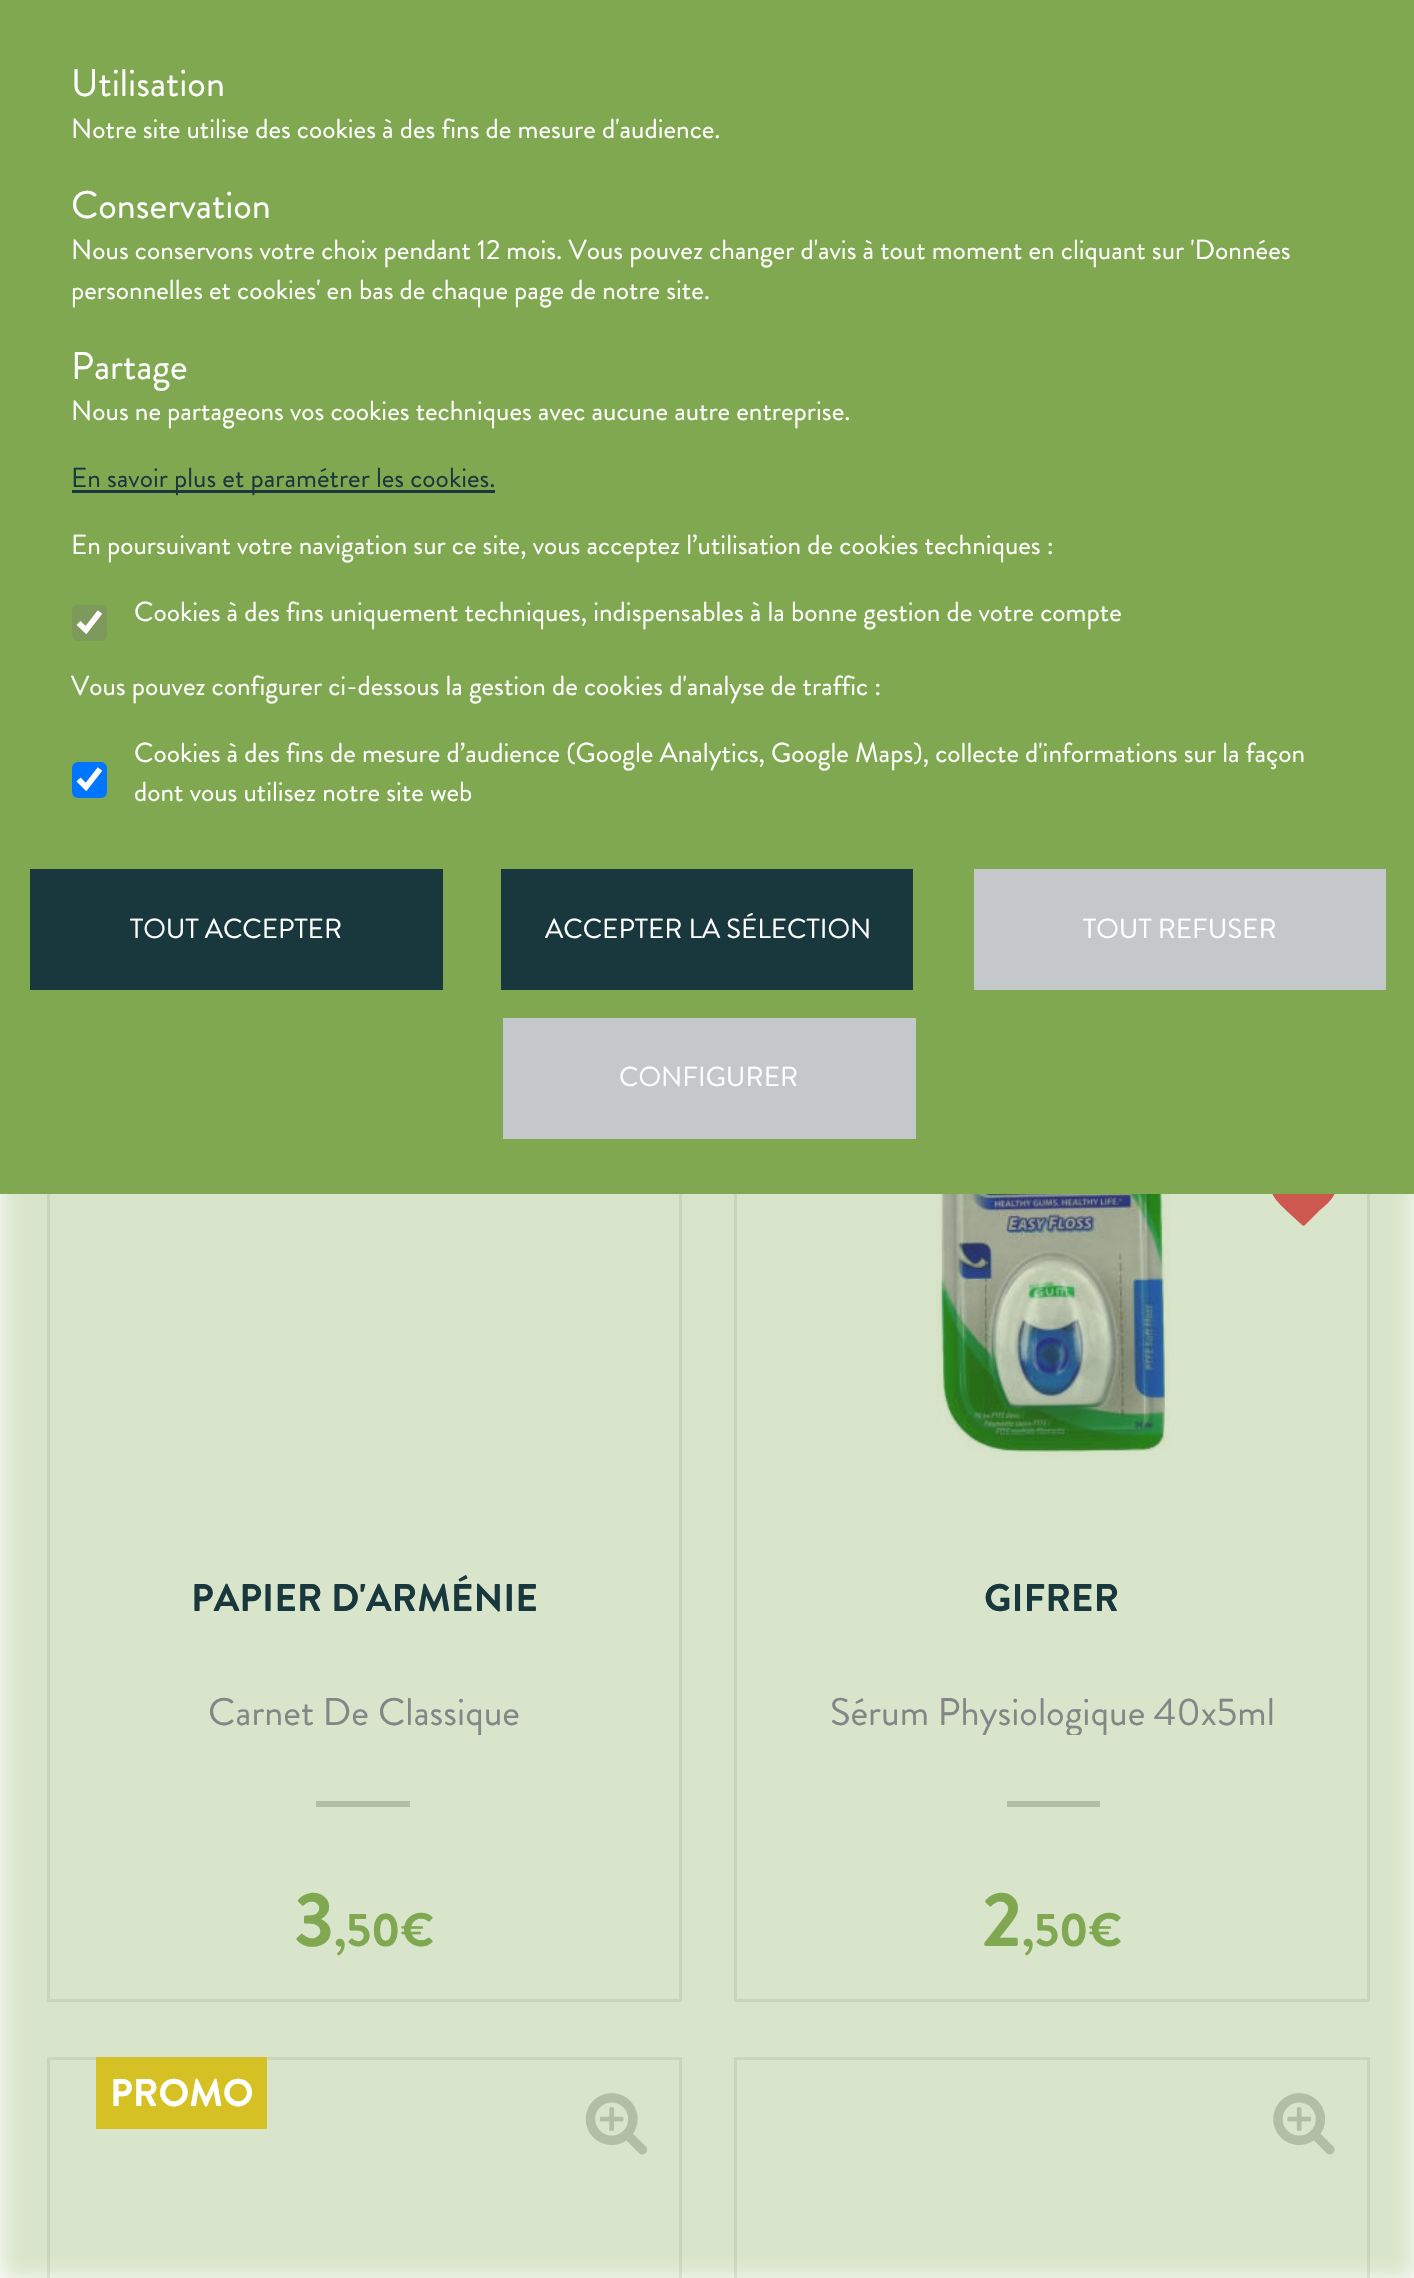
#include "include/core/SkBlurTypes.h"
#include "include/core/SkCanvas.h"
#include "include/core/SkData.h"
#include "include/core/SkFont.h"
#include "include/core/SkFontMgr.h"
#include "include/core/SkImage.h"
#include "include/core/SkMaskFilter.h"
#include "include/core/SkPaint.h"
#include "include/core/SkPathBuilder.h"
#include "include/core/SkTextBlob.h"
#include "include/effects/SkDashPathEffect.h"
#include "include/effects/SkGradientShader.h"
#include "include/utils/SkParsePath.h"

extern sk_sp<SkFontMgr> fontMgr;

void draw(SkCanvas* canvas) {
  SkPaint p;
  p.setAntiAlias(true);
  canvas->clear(SK_ColorWHITE);
  p.setStyle(SkPaint::kStroke_Style);
  p.setStrokeWidth(3);
  p.setColor(SkColorSetRGB(234, 234, 234));
  canvas->drawRect(SkRect::MakeLTRB(48.5f, 1041.5f, 680.5f, 2000.5f), p);
  p.setStyle(SkPaint::kFill_Style);
  p.setColor(SkColorSetRGB(196, 200, 202));
  canvas->drawRect(SkRect::MakeLTRB(316, 1801, 410, 1807), p);
  p.setStyle(SkPaint::kStroke_Style);
  p.setColor(SkColorSetRGB(234, 234, 234));
  canvas->drawRect(SkRect::MakeLTRB(735.5f, 1041.5f, 1368.5f, 2000.5f), p);
  canvas->drawImageRect(SkImages::DeferredFromEncodedData(SkData::MakeFromFileName("images/1.png")), SkRect::MakeLTRB(936, 1194, 1171, 1457), SkSamplingOptions());
  p.setStyle(SkPaint::kFill_Style);
  p.setColor(SkColorSetRGB(237, 52, 78));
  canvas->drawPath(SkPathBuilder().moveTo(1305, 1225).cubicTo(1304, 1226, 1303, 1226, 1302, 1225).lineTo(1290, 1214).cubicTo(1281, 1205, 1265, 1193, 1272, 1178).cubicTo(1275, 1172, 1280, 1170, 1286, 1169).cubicTo(1293, 1169, 1299, 1172, 1304, 1177).cubicTo(1310, 1170, 1320, 1166, 1329, 1172).cubicTo(1333, 1174, 1335, 1178, 1336, 1183).cubicTo(1337, 1187, 1336, 1191, 1334, 1195).cubicTo(1331, 1201, 1325, 1206, 1320, 1210).close().detach(), p);
  p.setColor(SkColorSetRGB(196, 200, 202));
  canvas->drawRect(SkRect::MakeLTRB(1007, 1801, 1100, 1807), p);
  p.setStyle(SkPaint::kStroke_Style);
  p.setColor(SkColorSetRGB(234, 234, 234));
  canvas->drawRect(SkRect::MakeLTRB(48.5f, 2058.5f, 680.5f, 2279.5f), p);
  p.setStyle(SkPaint::kFill_Style);
  p.setColor(SkColorSetRGB(249, 204, 15));
  canvas->drawRect(SkRect::MakeLTRB(96, 2057, 267, 2129), p);
  canvas->drawImageRect(SkImages::DeferredFromEncodedData(SkData::MakeFromFileName("images/2.png")), SkRect::MakeLTRB(585, 2093, 647, 2155), SkSamplingOptions());
  p.setStyle(SkPaint::kStroke_Style);
  p.setColor(SkColorSetRGB(234, 234, 234));
  canvas->drawRect(SkRect::MakeLTRB(735.5f, 2058.5f, 1368.5f, 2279.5f), p);
  canvas->drawImageRect(SkImages::DeferredFromEncodedData(SkData::MakeFromFileName("images/3.png")), SkRect::MakeLTRB(1273, 2093, 1335, 2155), SkSamplingOptions());
  p.setStyle(SkPaint::kFill_Style);
  p.setColor(SkColorSetARGB(77, 128, 168, 81));
  p.setMaskFilter(SkMaskFilter::MakeBlur(kNormal_SkBlurStyle, 11));
  canvas->drawRect(SkRect::MakeLTRB(0, 0, 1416, 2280), p);
  p.setMaskFilter(nullptr);
  p.setColor(SkColorSetRGB(128, 168, 81));
  canvas->drawRect(SkRect::MakeLTRB(0, 0, 1414, 1194), p);
  p.setColor(SkColorSetRGB(25, 56, 61));
  canvas->drawRect(SkRect::MakeLTRB(72, 490, 495, 493), p);
  p.setColor(SkColorSetRGB(125, 153, 92));
  canvas->drawRoundRect(SkRect::MakeLTRB(72, 605, 107, 641), 6, 6, p);
  p.setStyle(SkPaint::kStroke_Style);
  p.setStrokeWidth(5.7f);
  p.setColor(SK_ColorWHITE);
  canvas->drawPath(SkPathBuilder().moveTo(78.5f, 623).lineTo(86, 630).lineTo(100, 612).detach(), p);
  p.setStyle(SkPaint::kFill_Style);
  p.setColor(SkColorSetRGB(0, 117, 255));
  canvas->drawRoundRect(SkRect::MakeLTRB(72, 762, 107, 798), 6, 6, p);
  p.setStyle(SkPaint::kStroke_Style);
  p.setColor(SK_ColorWHITE);
  canvas->drawPath(SkPathBuilder().moveTo(78.5f, 779.5f).lineTo(86, 787).lineTo(100, 769).detach(), p);
  p.setStyle(SkPaint::kFill_Style);
  p.setColor(SkColorSetRGB(25, 56, 61));
  canvas->drawRect(SkRect::MakeLTRB(30, 869, 443, 990), p);
  canvas->drawRect(SkRect::MakeLTRB(501, 869, 913, 990), p);
  p.setColor(SkColorSetRGB(196, 200, 202));
  canvas->drawRect(SkRect::MakeLTRB(974, 869, 1386, 990), p);
  canvas->drawRect(SkRect::MakeLTRB(503, 1018, 916, 1139), p);
  SkFont font1(fontMgr->matchFamilyStyle("Brandon Grotesque", SkFontStyle::Normal()), 38.5f);
  font1.setSubpixel(true);
  p.setColor(SK_ColorWHITE);
  canvas->drawString("Utilisation", 71, 96, font1, p);
  SkFont font2(fontMgr->matchFamilyStyle("Brandon Grotesque", SkFontStyle::Normal()), 27.5f);
  font2.setSubpixel(true);
  canvas->drawString("Notre site utilise des cookies à des fins de mesure d'audience.", 71, 138, font2, p);
  canvas->drawString("Conservation", 71, 218, font1, p);
  canvas->drawString("Nous conservons votre choix pendant 12 mois. Vous pouvez changer d'avis à tout moment en cliquant sur 'Données", 71, 259, font2, p);
  canvas->drawString("personnelles et cookies' en bas de chaque page de notre site.", 71, 299, font2, p);
  canvas->drawString("Partage", 71, 379, font1, p);
  canvas->drawString("Nous ne partageons vos cookies techniques avec aucune autre entreprise.", 71, 420, font2, p);
  p.setColor(SkColorSetRGB(25, 56, 61));
  canvas->drawString("En savoir plus et paramétrer les cookies.", 71, 487, font2, p);
  p.setColor(SK_ColorWHITE);
  canvas->drawString("En poursuivant votre navigation sur ce site, vous acceptez l’utilisation de cookies techniques :", 71, 554, font2, p);
  canvas->drawString("Cookies à des fins uniquement techniques, indispensables à la bonne gestion de votre compte", 134, 621, font2, p);
  canvas->drawString("Vous pouvez configurer ci-dessous la gestion de cookies d'analyse de traffic :", 71, 695, font2, p);
  canvas->drawString("Cookies à des fins de mesure d’audience (Google Analytics, Google Maps), collecte d'informations sur la façon", 134, 762, font2, p);
  canvas->drawString("dont vous utilisez notre site web", 134, 801, font2, p);
  canvas->drawString("TOUT ACCEPTER", 130, 938, font2, p);
  canvas->drawString("ACCEPTER LA SÉLECTION", 545, 938, font2, p);
  canvas->drawString("TOUT REFUSER", 1083, 938, font2, p);
  canvas->drawString("CONFIGURER", 619, 1086, font2, p);
  SkFont font3(fontMgr->matchFamilyStyle("Brandon Grotesque", SkFontStyle::Bold()), 38.5f);
  font3.setSubpixel(true);
  p.setColor(SkColorSetRGB(25, 56, 61));
  canvas->drawString("PAPIER D'ARMÉNIE", 191, 1611, font3, p);
  p.setColor(SkColorSetRGB(131, 134, 135));
  canvas->drawString("Carnet De", 208, 1725, font1, p);
  canvas->save();
  canvas->clipRect(SkRect::MakeLTRB(80, 1689, 646, 1735));
  canvas->drawString("Classique", 378, 1725, font1, p);
  canvas->restore();
  SkFont font4(fontMgr->matchFamilyStyle("Brandon Grotesque", SkFontStyle::Bold()), 77);
  font4.setSubpixel(true);
  p.setColor(SkColorSetRGB(128, 168, 81));
  canvas->drawString("3", 294, 1946, font4, p);
  SkFont font5(fontMgr->matchFamilyStyle("Brandon Grotesque", SkFontStyle::Bold()), 47);
  font5.setSubpixel(true);
  canvas->drawString(",50€", 334, 1946, font5, p);
  p.setColor(SkColorSetRGB(25, 56, 61));
  canvas->drawString("GIFRER", 984, 1611, font3, p);
  canvas->save();
  canvas->clipRect(SkRect::MakeLTRB(770, 1689, 1337, 1735));
  p.setColor(SkColorSetRGB(131, 134, 135));
  canvas->drawString("Sérum Physiologique 40x5ml", 830, 1725, font1, p);
  canvas->restore();
  p.setColor(SkColorSetRGB(128, 168, 81));
  canvas->drawString("2", 982, 1946, font4, p);
  canvas->drawString(",50€", 1022, 1946, font5, p);
  p.setColor(SK_ColorWHITE);
  canvas->drawString("PROMO", 110, 2106, font3, p);
}
